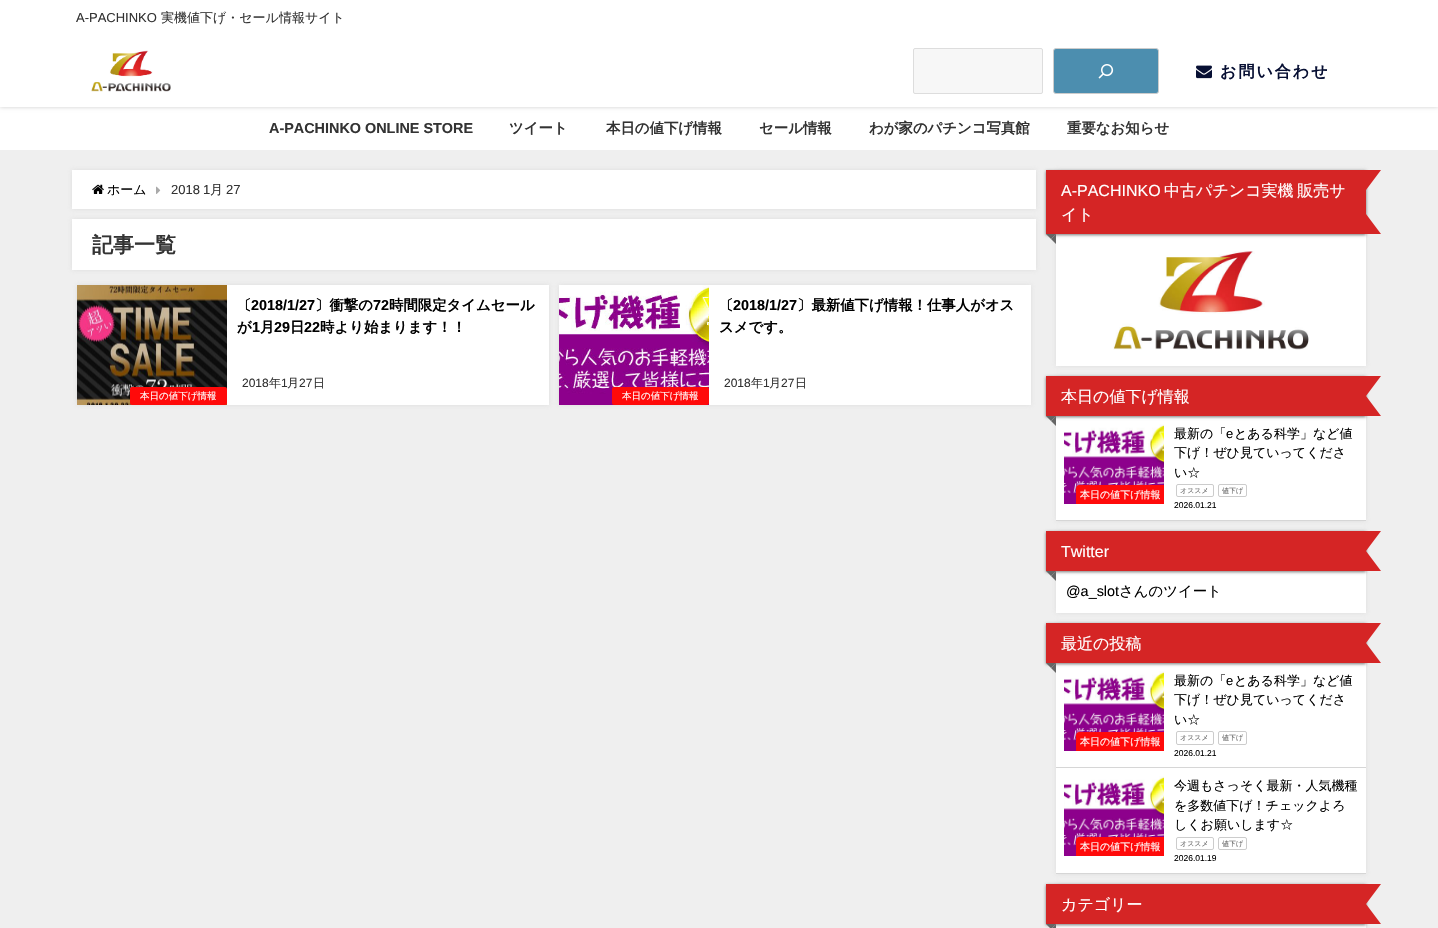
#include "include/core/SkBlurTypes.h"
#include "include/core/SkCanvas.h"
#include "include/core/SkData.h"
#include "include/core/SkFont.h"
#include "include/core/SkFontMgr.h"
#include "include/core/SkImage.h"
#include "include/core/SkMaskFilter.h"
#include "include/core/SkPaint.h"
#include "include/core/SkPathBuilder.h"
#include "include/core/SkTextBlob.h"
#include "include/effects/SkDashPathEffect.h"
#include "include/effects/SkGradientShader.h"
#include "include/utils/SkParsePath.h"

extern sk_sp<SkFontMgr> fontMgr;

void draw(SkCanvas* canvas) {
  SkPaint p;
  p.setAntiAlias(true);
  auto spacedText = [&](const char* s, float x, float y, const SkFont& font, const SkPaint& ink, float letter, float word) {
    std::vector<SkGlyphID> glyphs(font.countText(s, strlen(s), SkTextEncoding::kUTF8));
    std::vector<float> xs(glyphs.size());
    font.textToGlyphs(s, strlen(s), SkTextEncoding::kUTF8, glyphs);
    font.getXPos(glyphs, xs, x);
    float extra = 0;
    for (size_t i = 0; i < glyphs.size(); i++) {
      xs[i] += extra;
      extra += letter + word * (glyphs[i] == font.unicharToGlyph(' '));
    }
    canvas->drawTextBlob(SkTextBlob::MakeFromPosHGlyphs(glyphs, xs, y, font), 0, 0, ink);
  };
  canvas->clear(SkColorSetRGB(239, 239, 239));
  p.setColor(SK_ColorWHITE);
  canvas->drawRect(SkRect::MakeLTRB(0, 107, 1438, 150), p);
  p.setColor(SkColorSetARGB(51, 0, 0, 0));
  p.setMaskFilter(SkMaskFilter::MakeBlur(kNormal_SkBlurStyle, 2));
  canvas->drawRect(SkRect::MakeLTRB(0, 0, 1438, 107), p);
  p.setMaskFilter(nullptr);
  p.setColor(SK_ColorWHITE);
  canvas->drawRect(SkRect::MakeLTRB(0, 0, 1438, 107), p);
  canvas->drawImageRect(SkImages::DeferredFromEncodedData(SkData::MakeFromFileName("images/1.png")), SkRect::MakeLTRB(91, 50, 171, 92), SkSamplingOptions());
  p.setColor(SkColorSetRGB(247, 247, 247));
  canvas->drawRoundRect(SkRect::MakeLTRB(913.5f, 48.5f, 1042.5f, 93.5f), 1.5f, 1.5f, p);
  p.setStyle(SkPaint::kStroke_Style);
  p.setStrokeWidth(1);
  p.setColor(SkColorSetRGB(221, 221, 221));
  canvas->drawRoundRect(SkRect::MakeLTRB(913.5f, 48.5f, 1042.5f, 93.5f), 1.5f, 1.5f, p);
  p.setStyle(SkPaint::kFill_Style);
  p.setColor(SkColorSetRGB(76, 142, 175));
  canvas->drawRoundRect(SkRect::MakeLTRB(1053.5f, 48.5f, 1158.5f, 93.5f), 2.5f, 2.5f, p);
  p.setStyle(SkPaint::kStroke_Style);
  p.setColor(SkColorSetRGB(204, 204, 204));
  canvas->drawRoundRect(SkRect::MakeLTRB(1053.5f, 48.5f, 1158.5f, 93.5f), 2.5f, 2.5f, p);
  canvas->drawImageRect(SkImages::DeferredFromEncodedData(SkData::MakeFromFileName("images/2.png")), SkRect::MakeLTRB(1098, 64, 1114, 79), SkSamplingOptions());
  canvas->drawImageRect(SkImages::DeferredFromEncodedData(SkData::MakeFromFileName("images/3.png")), SkRect::MakeLTRB(1196, 65, 1212, 79), SkSamplingOptions());
  p.setStyle(SkPaint::kFill_Style);
  p.setColor(SkColorSetARGB(51, 150, 150, 150));
  p.setMaskFilter(SkMaskFilter::MakeBlur(kNormal_SkBlurStyle, 2.5f));
  canvas->drawRect(SkRect::MakeLTRB(72, 170, 1036, 209), p);
  p.setMaskFilter(nullptr);
  p.setColor(SK_ColorWHITE);
  canvas->drawRect(SkRect::MakeLTRB(72, 170, 1036, 209), p);
  canvas->drawImageRect(SkImages::DeferredFromEncodedData(SkData::MakeFromFileName("images/4.png")), SkRect::MakeLTRB(92, 184, 104, 194), SkSamplingOptions());
  canvas->drawImageRect(SkImages::DeferredFromEncodedData(SkData::MakeFromFileName("images/5.png")), SkRect::MakeLTRB(156, 186, 161, 194), SkSamplingOptions());
  p.setColor(SkColorSetARGB(51, 150, 150, 150));
  p.setMaskFilter(SkMaskFilter::MakeBlur(kNormal_SkBlurStyle, 2.5f));
  canvas->drawRect(SkRect::MakeLTRB(72, 219, 1036, 270), p);
  p.setMaskFilter(nullptr);
  p.setColor(SK_ColorWHITE);
  canvas->drawRect(SkRect::MakeLTRB(72, 219, 1036, 270), p);
  p.setColor(SkColorSetARGB(51, 150, 150, 150));
  p.setMaskFilter(SkMaskFilter::MakeBlur(kNormal_SkBlurStyle, 2.5f));
  canvas->drawRect(SkRect::MakeLTRB(77, 285, 549, 405), p);
  p.setMaskFilter(nullptr);
  p.setColor(SK_ColorWHITE);
  canvas->drawRect(SkRect::MakeLTRB(227, 285, 549, 405), p);
  canvas->drawImageRect(SkImages::DeferredFromEncodedData(SkData::MakeFromFileName("images/6.png")), SkRect::MakeLTRB(77, 285, 227, 405), SkSamplingOptions());
  p.setColor(SkColorSetRGB(255, 10, 10));
  canvas->drawRoundRect(SkRect::MakeLTRB(130, 387, 227, 405), 2, 2, p);
  p.setColor(SkColorSetARGB(51, 150, 150, 150));
  p.setMaskFilter(SkMaskFilter::MakeBlur(kNormal_SkBlurStyle, 2.5f));
  canvas->drawRect(SkRect::MakeLTRB(559, 285, 1031, 405), p);
  p.setMaskFilter(nullptr);
  p.setColor(SK_ColorWHITE);
  canvas->drawRect(SkRect::MakeLTRB(709, 285, 1031, 405), p);
  canvas->drawImageRect(SkImages::DeferredFromEncodedData(SkData::MakeFromFileName("images/7.png")), SkRect::MakeLTRB(559, 285, 709, 405), SkSamplingOptions());
  p.setColor(SkColorSetRGB(255, 10, 10));
  canvas->drawRoundRect(SkRect::MakeLTRB(612, 387, 709, 405), 2, 2, p);
  p.setColor(SkColorSetARGB(51, 150, 150, 150));
  p.setMaskFilter(SkMaskFilter::MakeBlur(kNormal_SkBlurStyle, 2.5f));
  canvas->drawRect(SkRect::MakeLTRB(1056, 170, 1366, 366), p);
  p.setMaskFilter(nullptr);
  p.setColor(SK_ColorWHITE);
  canvas->drawRect(SkRect::MakeLTRB(1056, 234, 1366, 366), p);
  p.setColor(SkColorSetRGB(119, 119, 119));
  p.setMaskFilter(SkMaskFilter::MakeBlur(kNormal_SkBlurStyle, 1.5f));
  canvas->drawRect(SkRect::MakeLTRB(1046, 171, 1366, 235), p);
  p.setMaskFilter(nullptr);
  p.setColor(SkColorSetRGB(213, 37, 37));
  canvas->drawRect(SkRect::MakeLTRB(1046, 170, 1366, 234), p);
  canvas->drawPath(SkPathBuilder().moveTo(1366, 170).lineTo(1381, 170).lineTo(1366, 190).close().detach(), p);
  canvas->drawPath(SkPathBuilder().moveTo(1381, 234).lineTo(1366, 234).lineTo(1366, 214).close().detach(), p);
  p.setColor(SkColorSetRGB(102, 102, 102));
  canvas->drawPath(SkPathBuilder().moveTo(1046, 234).lineTo(1056, 234).lineTo(1051, 239).close().detach(), p);
  canvas->drawPath(SkPathBuilder().moveTo(1056, 234).lineTo(1056, 244).lineTo(1051, 239).close().detach(), p);
  canvas->drawImageRect(SkImages::DeferredFromEncodedData(SkData::MakeFromFileName("images/8.png")), SkRect::MakeLTRB(1113, 251, 1309, 350), SkSamplingOptions());
  p.setColor(SkColorSetARGB(51, 150, 150, 150));
  p.setMaskFilter(SkMaskFilter::MakeBlur(kNormal_SkBlurStyle, 2.5f));
  canvas->drawRect(SkRect::MakeLTRB(1056, 376, 1366, 521), p);
  p.setMaskFilter(nullptr);
  p.setColor(SK_ColorWHITE);
  canvas->drawRect(SkRect::MakeLTRB(1056, 416, 1366, 520), p);
  p.setColor(SkColorSetRGB(119, 119, 119));
  p.setMaskFilter(SkMaskFilter::MakeBlur(kNormal_SkBlurStyle, 1.5f));
  canvas->drawRect(SkRect::MakeLTRB(1046, 377, 1366, 417), p);
  p.setMaskFilter(nullptr);
  p.setColor(SkColorSetRGB(213, 37, 37));
  canvas->drawRect(SkRect::MakeLTRB(1046, 376, 1366, 416), p);
  canvas->drawPath(SkPathBuilder().moveTo(1366, 376).lineTo(1381, 376).lineTo(1366, 396).close().moveTo(1381, 416).lineTo(1366, 416).lineTo(1366, 396).close().detach(), p);
  p.setColor(SkColorSetRGB(102, 102, 102));
  canvas->drawPath(SkPathBuilder().moveTo(1046, 416).lineTo(1056, 416).lineTo(1051, 421).close().detach(), p);
  canvas->drawPath(SkPathBuilder().moveTo(1056, 416).lineTo(1056, 426).lineTo(1051, 421).close().detach(), p);
  p.setColor(SkColorSetRGB(214, 214, 214));
  canvas->drawRect(SkRect::MakeLTRB(1056, 520, 1366, 521), p);
  canvas->drawImageRect(SkImages::DeferredFromEncodedData(SkData::MakeFromFileName("images/9.png")), SkRect::MakeLTRB(1064, 424, 1164, 504), SkSamplingOptions());
  p.setColor(SkColorSetRGB(255, 10, 10));
  canvas->drawPath(SkPathBuilder().moveTo(1079, 485).lineTo(1164, 485).lineTo(1164, 504).lineTo(1076, 504).lineTo(1076, 488).cubicTo(1076, 486.5f, 1077.5f, 485, 1079, 485).close().detach(), p);
  p.setStyle(SkPaint::kStroke_Style);
  p.setColor(SkColorSetRGB(204, 204, 204));
  canvas->drawRoundRect(SkRect::MakeLTRB(1176.5f, 484.5f, 1213.5f, 496.5f), 1.5f, 1.5f, p);
  canvas->drawRoundRect(SkRect::MakeLTRB(1218.5f, 484.5f, 1246.5f, 496.5f), 1.5f, 1.5f, p);
  p.setStyle(SkPaint::kFill_Style);
  p.setColor(SkColorSetARGB(51, 150, 150, 150));
  p.setMaskFilter(SkMaskFilter::MakeBlur(kNormal_SkBlurStyle, 2.5f));
  canvas->drawRect(SkRect::MakeLTRB(1056, 531, 1366, 613), p);
  p.setMaskFilter(nullptr);
  p.setColor(SK_ColorWHITE);
  canvas->drawRect(SkRect::MakeLTRB(1056, 571, 1366, 613), p);
  p.setColor(SkColorSetRGB(119, 119, 119));
  p.setMaskFilter(SkMaskFilter::MakeBlur(kNormal_SkBlurStyle, 1.5f));
  canvas->drawRect(SkRect::MakeLTRB(1046, 532, 1366, 572), p);
  p.setMaskFilter(nullptr);
  p.setColor(SkColorSetRGB(213, 37, 37));
  canvas->drawRect(SkRect::MakeLTRB(1046, 531, 1366, 571), p);
  canvas->drawPath(SkPathBuilder().moveTo(1366, 531).lineTo(1381, 531).lineTo(1366, 551).close().moveTo(1381, 571).lineTo(1366, 571).lineTo(1366, 551).close().detach(), p);
  p.setColor(SkColorSetRGB(102, 102, 102));
  canvas->drawPath(SkPathBuilder().moveTo(1046, 571).lineTo(1056, 571).lineTo(1051, 576).close().detach(), p);
  canvas->drawPath(SkPathBuilder().moveTo(1056, 571).lineTo(1056, 581).lineTo(1051, 576).close().detach(), p);
  p.setColor(SkColorSetARGB(51, 150, 150, 150));
  p.setMaskFilter(SkMaskFilter::MakeBlur(kNormal_SkBlurStyle, 2.5f));
  canvas->drawRect(SkRect::MakeLTRB(1056, 623, 1366, 874), p);
  p.setMaskFilter(nullptr);
  p.setColor(SK_ColorWHITE);
  canvas->drawRect(SkRect::MakeLTRB(1056, 663, 1366, 873), p);
  p.setColor(SkColorSetRGB(119, 119, 119));
  p.setMaskFilter(SkMaskFilter::MakeBlur(kNormal_SkBlurStyle, 1.5f));
  canvas->drawRect(SkRect::MakeLTRB(1046, 624, 1366, 664), p);
  p.setMaskFilter(nullptr);
  p.setColor(SkColorSetRGB(213, 37, 37));
  canvas->drawRect(SkRect::MakeLTRB(1046, 623, 1366, 663), p);
  canvas->drawPath(SkPathBuilder().moveTo(1366, 623).lineTo(1381, 623).lineTo(1366, 643).close().moveTo(1381, 663).lineTo(1366, 663).lineTo(1366, 643).close().detach(), p);
  p.setColor(SkColorSetRGB(102, 102, 102));
  canvas->drawPath(SkPathBuilder().moveTo(1046, 663).lineTo(1056, 663).lineTo(1051, 668).close().detach(), p);
  canvas->drawPath(SkPathBuilder().moveTo(1056, 663).lineTo(1056, 673).lineTo(1051, 668).close().detach(), p);
  p.setColor(SkColorSetRGB(214, 214, 214));
  canvas->drawRect(SkRect::MakeLTRB(1056, 767, 1366, 768), p);
  canvas->drawImageRect(SkImages::DeferredFromEncodedData(SkData::MakeFromFileName("images/9.png")), SkRect::MakeLTRB(1064, 671, 1164, 751), SkSamplingOptions());
  p.setColor(SkColorSetRGB(255, 10, 10));
  canvas->drawPath(SkPathBuilder().moveTo(1079, 732).lineTo(1164, 732).lineTo(1164, 751).lineTo(1076, 751).lineTo(1076, 735).cubicTo(1076, 733.5f, 1077.5f, 732, 1079, 732).close().detach(), p);
  p.setStyle(SkPaint::kStroke_Style);
  p.setColor(SkColorSetRGB(204, 204, 204));
  canvas->drawRoundRect(SkRect::MakeLTRB(1176.5f, 731.5f, 1213.5f, 744.5f), 1.5f, 1.5f, p);
  canvas->drawRoundRect(SkRect::MakeLTRB(1218.5f, 731.5f, 1246.5f, 744.5f), 1.5f, 1.5f, p);
  p.setStyle(SkPaint::kFill_Style);
  p.setColor(SkColorSetRGB(214, 214, 214));
  canvas->drawRect(SkRect::MakeLTRB(1056, 873, 1366, 874), p);
  canvas->drawImageRect(SkImages::DeferredFromEncodedData(SkData::MakeFromFileName("images/10.png")), SkRect::MakeLTRB(1064, 776, 1164, 856), SkSamplingOptions());
  p.setColor(SkColorSetRGB(255, 10, 10));
  canvas->drawPath(SkPathBuilder().moveTo(1079, 837).lineTo(1164, 837).lineTo(1164, 856).lineTo(1076, 856).lineTo(1076, 840).cubicTo(1076, 838.5f, 1077.5f, 837, 1079, 837).close().detach(), p);
  p.setStyle(SkPaint::kStroke_Style);
  p.setColor(SkColorSetRGB(204, 204, 204));
  canvas->drawRoundRect(SkRect::MakeLTRB(1176.5f, 837.5f, 1213.5f, 849.5f), 1.5f, 1.5f, p);
  canvas->drawRoundRect(SkRect::MakeLTRB(1218.5f, 837.5f, 1246.5f, 849.5f), 1.5f, 1.5f, p);
  p.setStyle(SkPaint::kFill_Style);
  p.setColor(SkColorSetARGB(51, 150, 150, 150));
  p.setMaskFilter(SkMaskFilter::MakeBlur(kNormal_SkBlurStyle, 2.5f));
  canvas->drawRect(SkRect::MakeLTRB(1056, 884, 1366, 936), p);
  p.setMaskFilter(nullptr);
  p.setColor(SK_ColorWHITE);
  canvas->drawRect(SkRect::MakeLTRB(1056, 924, 1366, 928), p);
  p.setColor(SkColorSetRGB(119, 119, 119));
  p.setMaskFilter(SkMaskFilter::MakeBlur(kNormal_SkBlurStyle, 1.5f));
  canvas->drawRect(SkRect::MakeLTRB(1046, 885, 1366, 925), p);
  p.setMaskFilter(nullptr);
  p.setColor(SkColorSetRGB(213, 37, 37));
  canvas->drawRect(SkRect::MakeLTRB(1046, 884, 1366, 924), p);
  canvas->drawPath(SkPathBuilder().moveTo(1366, 884).lineTo(1381, 884).lineTo(1366, 904).close().moveTo(1381, 924).lineTo(1366, 924).lineTo(1366, 904).close().detach(), p);
  p.setColor(SkColorSetRGB(102, 102, 102));
  canvas->drawPath(SkPathBuilder().moveTo(1046, 924).lineTo(1056, 924).lineTo(1051, 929).close().detach(), p);
  canvas->drawPath(SkPathBuilder().moveTo(1056, 924).lineTo(1056, 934).lineTo(1051, 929).close().detach(), p);
  SkFont font1(fontMgr->matchFamilyStyle("Liberation Sans", SkFontStyle::Normal()), 13);
  font1.setSubpixel(true);
  p.setColor(SkColorSetRGB(51, 51, 51));
  canvas->drawString("A-PACHINKO", 76, 22, font1, p);
  SkFont font2(fontMgr->matchFamilyStyle("WenQuanYi Zen Hei", SkFontStyle(500, SkFontStyle::kNormal_Width, SkFontStyle::kUpright_Slant)), 13);
  font2.setSubpixel(true);
  canvas->drawString("実機値下げ・セール情報サイト", 161, 22, font2, p);
  SkFont font3(fontMgr->matchFamilyStyle("WenQuanYi Zen Hei", SkFontStyle::Bold()), 16);
  font3.setSubpixel(true);
  p.setColor(SkColorSetRGB(7, 15, 51));
  spacedText("お問い合わせ", 1220, 77, font3, p, 2, 0);
  SkFont font4(fontMgr->matchFamilyStyle("Liberation Sans", SkFontStyle::Bold()), 14.4f);
  font4.setSubpixel(true);
  p.setColor(SkColorSetRGB(51, 51, 51));
  canvas->drawString("A-PACHINKO ONLINE STORE", 269, 133, font4, p);
  SkFont font5(fontMgr->matchFamilyStyle("WenQuanYi Zen Hei", SkFontStyle::Bold()), 14.4f);
  font5.setSubpixel(true);
  canvas->drawString("ツイート", 509, 133, font5, p);
  canvas->drawString("本日の値下げ情報", 606, 133, font5, p);
  canvas->drawString("セール情報", 759, 133, font5, p);
  canvas->drawString("わが家のパチンコ写真館", 869, 133, font5, p);
  canvas->drawString("重要なお知らせ", 1067, 133, font5, p);
  p.setColor(SK_ColorBLACK);
  canvas->drawString("ホーム", 107, 194, font2, p);
  p.setColor(SkColorSetRGB(51, 51, 51));
  canvas->drawString("2018", 171, 194, font1, p);
  canvas->drawString("1", 203, 194, font1, p);
  canvas->drawString("月", 210, 194, font2, p);
  canvas->drawString("27", 226, 194, font1, p);
  SkFont font6(fontMgr->matchFamilyStyle("WenQuanYi Zen Hei", SkFontStyle::Bold()), 21);
  font6.setSubpixel(true);
  canvas->drawString("記事一覧", 92, 252, font6, p);
  p.setColor(SK_ColorBLACK);
  canvas->drawString("〔", 237, 310, font5, p);
  canvas->drawString("2018/1/27", 251, 310, font4, p);
  canvas->drawString("〕衝撃の", 315, 310, font5, p);
  canvas->drawString("72", 373, 310, font4, p);
  canvas->drawString("時間限定タイムセール", 389, 310, font5, p);
  canvas->drawString("が", 237, 332, font5, p);
  canvas->drawString("1", 252, 332, font4, p);
  canvas->drawString("月", 260, 332, font5, p);
  canvas->drawString("29", 274, 332, font4, p);
  canvas->drawString("日", 290, 332, font5, p);
  canvas->drawString("22", 304, 332, font4, p);
  canvas->drawString("時より始まります！！", 320, 332, font5, p);
  SkFont font7(fontMgr->matchFamilyStyle("Liberation Sans", SkFontStyle::Normal()), 12);
  font7.setSubpixel(true);
  p.setColor(SkColorSetRGB(51, 51, 51));
  canvas->drawString("2018", 242, 387, font7, p);
  SkFont font8(fontMgr->matchFamilyStyle("WenQuanYi Zen Hei", SkFontStyle(500, SkFontStyle::kNormal_Width, SkFontStyle::kUpright_Slant)), 12);
  font8.setSubpixel(true);
  canvas->drawString("年", 269, 387, font8, p);
  canvas->drawString("1", 281, 387, font7, p);
  canvas->drawString("月", 287, 387, font8, p);
  canvas->drawString("27", 299, 387, font7, p);
  canvas->drawString("日", 313, 387, font8, p);
  SkFont font9(fontMgr->matchFamilyStyle("WenQuanYi Zen Hei", SkFontStyle(500, SkFontStyle::kNormal_Width, SkFontStyle::kUpright_Slant)), 9.5f);
  font9.setSubpixel(true);
  p.setColor(SK_ColorWHITE);
  canvas->drawString("本日の値下げ情報", 140, 399, font9, p);
  p.setColor(SK_ColorBLACK);
  canvas->drawString("〔", 719, 310, font5, p);
  canvas->drawString("2018/1/27", 733, 310, font4, p);
  canvas->drawString("〕最新値下げ情報！仕事人がオス", 797, 310, font5, p);
  canvas->drawString("スメです。", 719, 332, font5, p);
  p.setColor(SkColorSetRGB(51, 51, 51));
  canvas->drawString("2018", 724, 387, font7, p);
  canvas->drawString("年", 751, 387, font8, p);
  canvas->drawString("1", 763, 387, font7, p);
  canvas->drawString("月", 769, 387, font8, p);
  canvas->drawString("27", 781, 387, font7, p);
  canvas->drawString("日", 795, 387, font8, p);
  p.setColor(SK_ColorWHITE);
  canvas->drawString("本日の値下げ情報", 622, 399, font9, p);
  SkFont font10(fontMgr->matchFamilyStyle("Liberation Sans", SkFontStyle::Normal()), 16);
  font10.setSubpixel(true);
  canvas->drawString("A-PACHINKO", 1061, 196, font10, p);
  SkFont font11(fontMgr->matchFamilyStyle("WenQuanYi Zen Hei", SkFontStyle(500, SkFontStyle::kNormal_Width, SkFontStyle::kUpright_Slant)), 16);
  font11.setSubpixel(true);
  spacedText("中古パチンコ実機 販売サ", 1164, 196, font11, p, 0, -1);
  canvas->drawString("イト", 1061, 220, font11, p);
  canvas->drawString("本日の値下げ情報", 1061, 402, font11, p);
  SkFont font12(fontMgr->matchFamilyStyle("WenQuanYi Zen Hei", SkFontStyle(500, SkFontStyle::kNormal_Width, SkFontStyle::kUpright_Slant)), 10);
  font12.setSubpixel(true);
  canvas->drawString("本日の値下げ情報", 1080, 498, font12, p);
  p.setColor(SK_ColorBLACK);
  canvas->drawString("最新の「", 1174, 438, font2, p);
  canvas->drawString("e", 1226, 438, font1, p);
  canvas->drawString("とある科学」など値", 1234, 438, font2, p);
  canvas->drawString("下げ！ぜひ見ていってくださ", 1174, 457, font2, p);
  canvas->drawString("い☆", 1174, 477, font2, p);
  SkFont font13(fontMgr->matchFamilyStyle("WenQuanYi Zen Hei", SkFontStyle(500, SkFontStyle::kNormal_Width, SkFontStyle::kUpright_Slant)), 7);
  font13.setSubpixel(true);
  p.setColor(SkColorSetRGB(102, 102, 102));
  canvas->drawString("オススメ", 1180, 493, font13, p);
  canvas->drawString("値下げ", 1222, 493, font13, p);
  SkFont font14(fontMgr->matchFamilyStyle("Liberation Sans", SkFontStyle::Normal()), 8.5f);
  font14.setSubpixel(true);
  p.setColor(SK_ColorBLACK);
  canvas->drawString("2026.01.21", 1174, 508, font14, p);
  p.setColor(SK_ColorWHITE);
  canvas->drawString("Twitter", 1061, 557, font10, p);
  SkFont font15(fontMgr->matchFamilyStyle("Liberation Sans", SkFontStyle::Normal()), 14.4f);
  font15.setSubpixel(true);
  p.setColor(SK_ColorBLACK);
  canvas->drawString("@a_slot", 1066, 596, font15, p);
  SkFont font16(fontMgr->matchFamilyStyle("WenQuanYi Zen Hei", SkFontStyle(500, SkFontStyle::kNormal_Width, SkFontStyle::kUpright_Slant)), 14.4f);
  font16.setSubpixel(true);
  canvas->drawString("さんのツイート", 1119, 596, font16, p);
  p.setColor(SK_ColorWHITE);
  canvas->drawString("最近の投稿", 1061, 649, font11, p);
  canvas->drawString("本日の値下げ情報", 1080, 745, font12, p);
  p.setColor(SK_ColorBLACK);
  canvas->drawString("最新の「", 1174, 685, font2, p);
  canvas->drawString("e", 1226, 685, font1, p);
  canvas->drawString("とある科学」など値", 1234, 685, font2, p);
  canvas->drawString("下げ！ぜひ見ていってくださ", 1174, 704, font2, p);
  canvas->drawString("い☆", 1174, 724, font2, p);
  p.setColor(SkColorSetRGB(102, 102, 102));
  canvas->drawString("オススメ", 1180, 740, font13, p);
  canvas->drawString("値下げ", 1222, 740, font13, p);
  p.setColor(SK_ColorBLACK);
  canvas->drawString("2026.01.21", 1174, 756, font14, p);
  p.setColor(SK_ColorWHITE);
  canvas->drawString("本日の値下げ情報", 1080, 850, font12, p);
  p.setColor(SK_ColorBLACK);
  canvas->drawString("今週もさっそく最新・人気機種", 1174, 790, font2, p);
  canvas->drawString("を多数値下げ！チェックよろ", 1174, 810, font2, p);
  canvas->drawString("しくお願いします☆", 1174, 829, font2, p);
  p.setColor(SkColorSetRGB(102, 102, 102));
  canvas->drawString("オススメ", 1180, 846, font13, p);
  canvas->drawString("値下げ", 1222, 846, font13, p);
  p.setColor(SK_ColorBLACK);
  canvas->drawString("2026.01.19", 1174, 861, font14, p);
  p.setColor(SK_ColorWHITE);
  canvas->drawString("カテゴリー", 1061, 910, font11, p);
}
